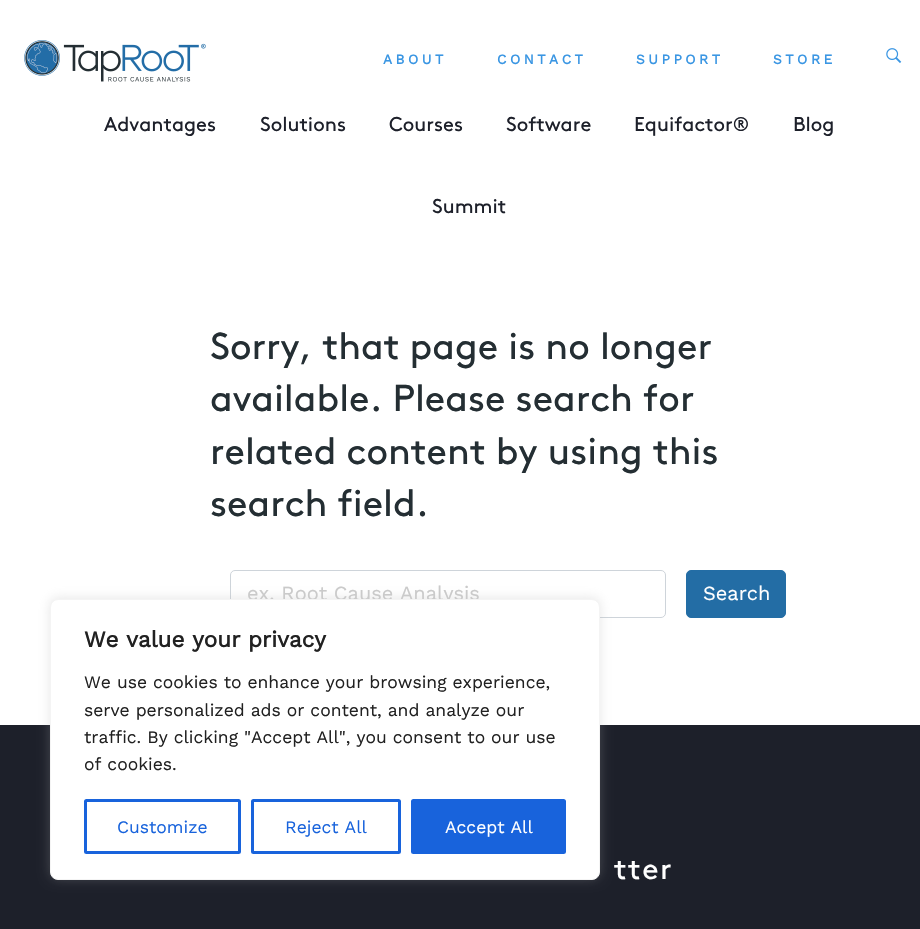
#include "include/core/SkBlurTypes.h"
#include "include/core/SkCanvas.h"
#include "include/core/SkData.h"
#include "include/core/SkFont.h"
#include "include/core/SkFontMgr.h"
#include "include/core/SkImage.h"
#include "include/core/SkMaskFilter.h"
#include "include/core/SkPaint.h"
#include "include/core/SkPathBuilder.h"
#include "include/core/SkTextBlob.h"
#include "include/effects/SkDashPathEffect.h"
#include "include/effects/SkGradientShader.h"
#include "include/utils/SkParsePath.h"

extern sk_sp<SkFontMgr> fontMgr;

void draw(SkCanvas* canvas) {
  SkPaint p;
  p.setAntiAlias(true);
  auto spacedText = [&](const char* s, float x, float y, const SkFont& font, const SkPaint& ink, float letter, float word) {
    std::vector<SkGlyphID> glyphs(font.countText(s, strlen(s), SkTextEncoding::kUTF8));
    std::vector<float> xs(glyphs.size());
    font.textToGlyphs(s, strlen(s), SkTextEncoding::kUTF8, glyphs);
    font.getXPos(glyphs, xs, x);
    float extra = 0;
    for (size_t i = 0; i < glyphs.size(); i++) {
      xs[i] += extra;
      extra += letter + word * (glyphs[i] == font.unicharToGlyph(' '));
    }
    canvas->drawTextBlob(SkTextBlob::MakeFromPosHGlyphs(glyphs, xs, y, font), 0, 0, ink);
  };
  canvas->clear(SK_ColorWHITE);
  canvas->drawImageRect(SkImages::DeferredFromEncodedData(SkData::MakeFromFileName("images/1.png")), SkRect::MakeLTRB(24, 40, 206, 82), SkSamplingOptions());
  canvas->drawImageRect(SkImages::DeferredFromEncodedData(SkData::MakeFromFileName("images/2.png")), SkRect::MakeLTRB(886, 48, 902, 63), SkSamplingOptions());
  p.setStyle(SkPaint::kStroke_Style);
  p.setStrokeWidth(1);
  p.setColor(SkColorSetRGB(206, 212, 218));
  canvas->drawRoundRect(SkRect::MakeLTRB(230.5f, 570.5f, 665.5f, 617.5f), 4.5f, 4.5f, p);
  p.setStyle(SkPaint::kFill_Style);
  p.setColor(SkColorSetRGB(35, 109, 165));
  canvas->drawRoundRect(SkRect::MakeLTRB(686.5f, 570.5f, 785.5f, 617.5f), 4.5f, 4.5f, p);
  p.setStyle(SkPaint::kStroke_Style);
  canvas->drawRoundRect(SkRect::MakeLTRB(686.5f, 570.5f, 785.5f, 617.5f), 4.5f, 4.5f, p);
  p.setStyle(SkPaint::kFill_Style);
  p.setColor(SkColorSetRGB(29, 32, 42));
  canvas->drawRect(SkRect::MakeLTRB(0, 725, 920, 929), p);
  p.setColor(SkColorSetARGB(77, 172, 171, 171));
  p.setMaskFilter(SkMaskFilter::MakeBlur(kNormal_SkBlurStyle, 6));
  canvas->drawRoundRect(SkRect::MakeLTRB(50, 598, 600, 879), 8, 8, p);
  p.setMaskFilter(nullptr);
  SkFont font1(fontMgr->matchFamilyStyle("Work Sans", SkFontStyle::Bold()), 13.75f);
  font1.setSubpixel(true);
  p.setColor(SkColorSetRGB(58, 150, 227));
  spacedText("ABOUT", 383, 64, font1, p, 3.5f, 0);
  spacedText("CONTACT", 497, 64, font1, p, 3.5f, 0);
  spacedText("SUPPORT", 636, 64, font1, p, 3.5f, 0);
  spacedText("STORE", 773, 64, font1, p, 3.5f, 0);
  SkFont font2(fontMgr->matchFamilyStyle("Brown", SkFontStyle::Normal()), 20);
  font2.setSubpixel(true);
  p.setColor(SkColorSetRGB(29, 32, 42));
  canvas->drawString("Advantages", 104, 131, font2, p);
  canvas->drawString("Solutions", 260, 131, font2, p);
  canvas->drawString("Courses", 389, 131, font2, p);
  canvas->drawString("Software", 506, 131, font2, p);
  canvas->drawString("Equifactor®", 634, 131, font2, p);
  canvas->drawString("Blog", 793, 131, font2, p);
  canvas->drawString("Summit", 432, 213, font2, p);
  SkFont font3(fontMgr->matchFamilyStyle("Brown", SkFontStyle::Normal()), 37.5f);
  font3.setSubpixel(true);
  p.setColor(SkColorSetRGB(36, 46, 51));
  canvas->drawString("Sorry, that page is no longer", 210, 359, font3, p);
  canvas->drawString("available. Please search for", 210, 411, font3, p);
  canvas->drawString("related content by using this", 210, 464, font3, p);
  canvas->drawString("search field.", 210, 516, font3, p);
  SkFont font4(fontMgr->matchFamilyStyle("Work Sans", SkFontStyle::Normal()), 20);
  font4.setSubpixel(true);
  p.setColor(SkColorSetRGB(202, 202, 202));
  canvas->drawString("ex. Root Cause Analysis", 247, 600, font4, p);
  p.setColor(SK_ColorWHITE);
  canvas->drawString("Search", 703, 600, font4, p);
  canvas->drawRoundRect(SkRect::MakeLTRB(50.5f, 599.5f, 599.5f, 879.5f), 7.5f, 7.5f, p);
  p.setStyle(SkPaint::kStroke_Style);
  p.setColor(SkColorSetRGB(244, 244, 244));
  canvas->drawRoundRect(SkRect::MakeLTRB(50.5f, 599.5f, 599.5f, 879.5f), 7.5f, 7.5f, p);
  SkFont font5(fontMgr->matchFamilyStyle("Work Sans", SkFontStyle::Bold()), 22.5f);
  font5.setSubpixel(true);
  p.setStyle(SkPaint::kFill_Style);
  p.setColor(SkColorSetRGB(33, 33, 33));
  canvas->drawString("We value your privacy", 84, 647, font5, p);
  SkFont font6(fontMgr->matchFamilyStyle("Work Sans", SkFontStyle::Normal()), 17.5f);
  font6.setSubpixel(true);
  canvas->drawString("We use cookies to enhance your browsing experience,", 84, 688, font6, p);
  canvas->drawString("serve personalized ads or content, and analyze our", 84, 716, font6, p);
  canvas->drawString("traffic. By clicking \"Accept All\", you consent to our use", 84, 743, font6, p);
  canvas->drawString("of cookies.", 84, 770, font6, p);
  p.setStyle(SkPaint::kStroke_Style);
  p.setStrokeWidth(3);
  p.setColor(SkColorSetRGB(24, 99, 220));
  canvas->drawRoundRect(SkRect::MakeLTRB(85.5f, 800.5f, 239.5f, 852.5f), 1, 1, p);
  p.setStyle(SkPaint::kFill_Style);
  canvas->drawString("Customize", 117, 833, font6, p);
  p.setStyle(SkPaint::kStroke_Style);
  canvas->drawRoundRect(SkRect::MakeLTRB(252.5f, 800.5f, 399.5f, 852.5f), 1, 1, p);
  p.setStyle(SkPaint::kFill_Style);
  canvas->drawString("Reject All", 285, 833, font6, p);
  canvas->drawRoundRect(SkRect::MakeLTRB(412.5f, 800.5f, 564.5f, 852.5f), 1, 1, p);
  p.setStyle(SkPaint::kStroke_Style);
  canvas->drawRoundRect(SkRect::MakeLTRB(412.5f, 800.5f, 564.5f, 852.5f), 1, 1, p);
  p.setStyle(SkPaint::kFill_Style);
  p.setColor(SK_ColorWHITE);
  canvas->drawString("Accept All", 445, 833, font6, p);
  SkFont font7(fontMgr->matchFamilyStyle("Brown", SkFontStyle::Normal()), 30);
  font7.setSubpixel(true);
  spacedText("tter", 614, 879, font7, p, 1.5f, 0);
}
